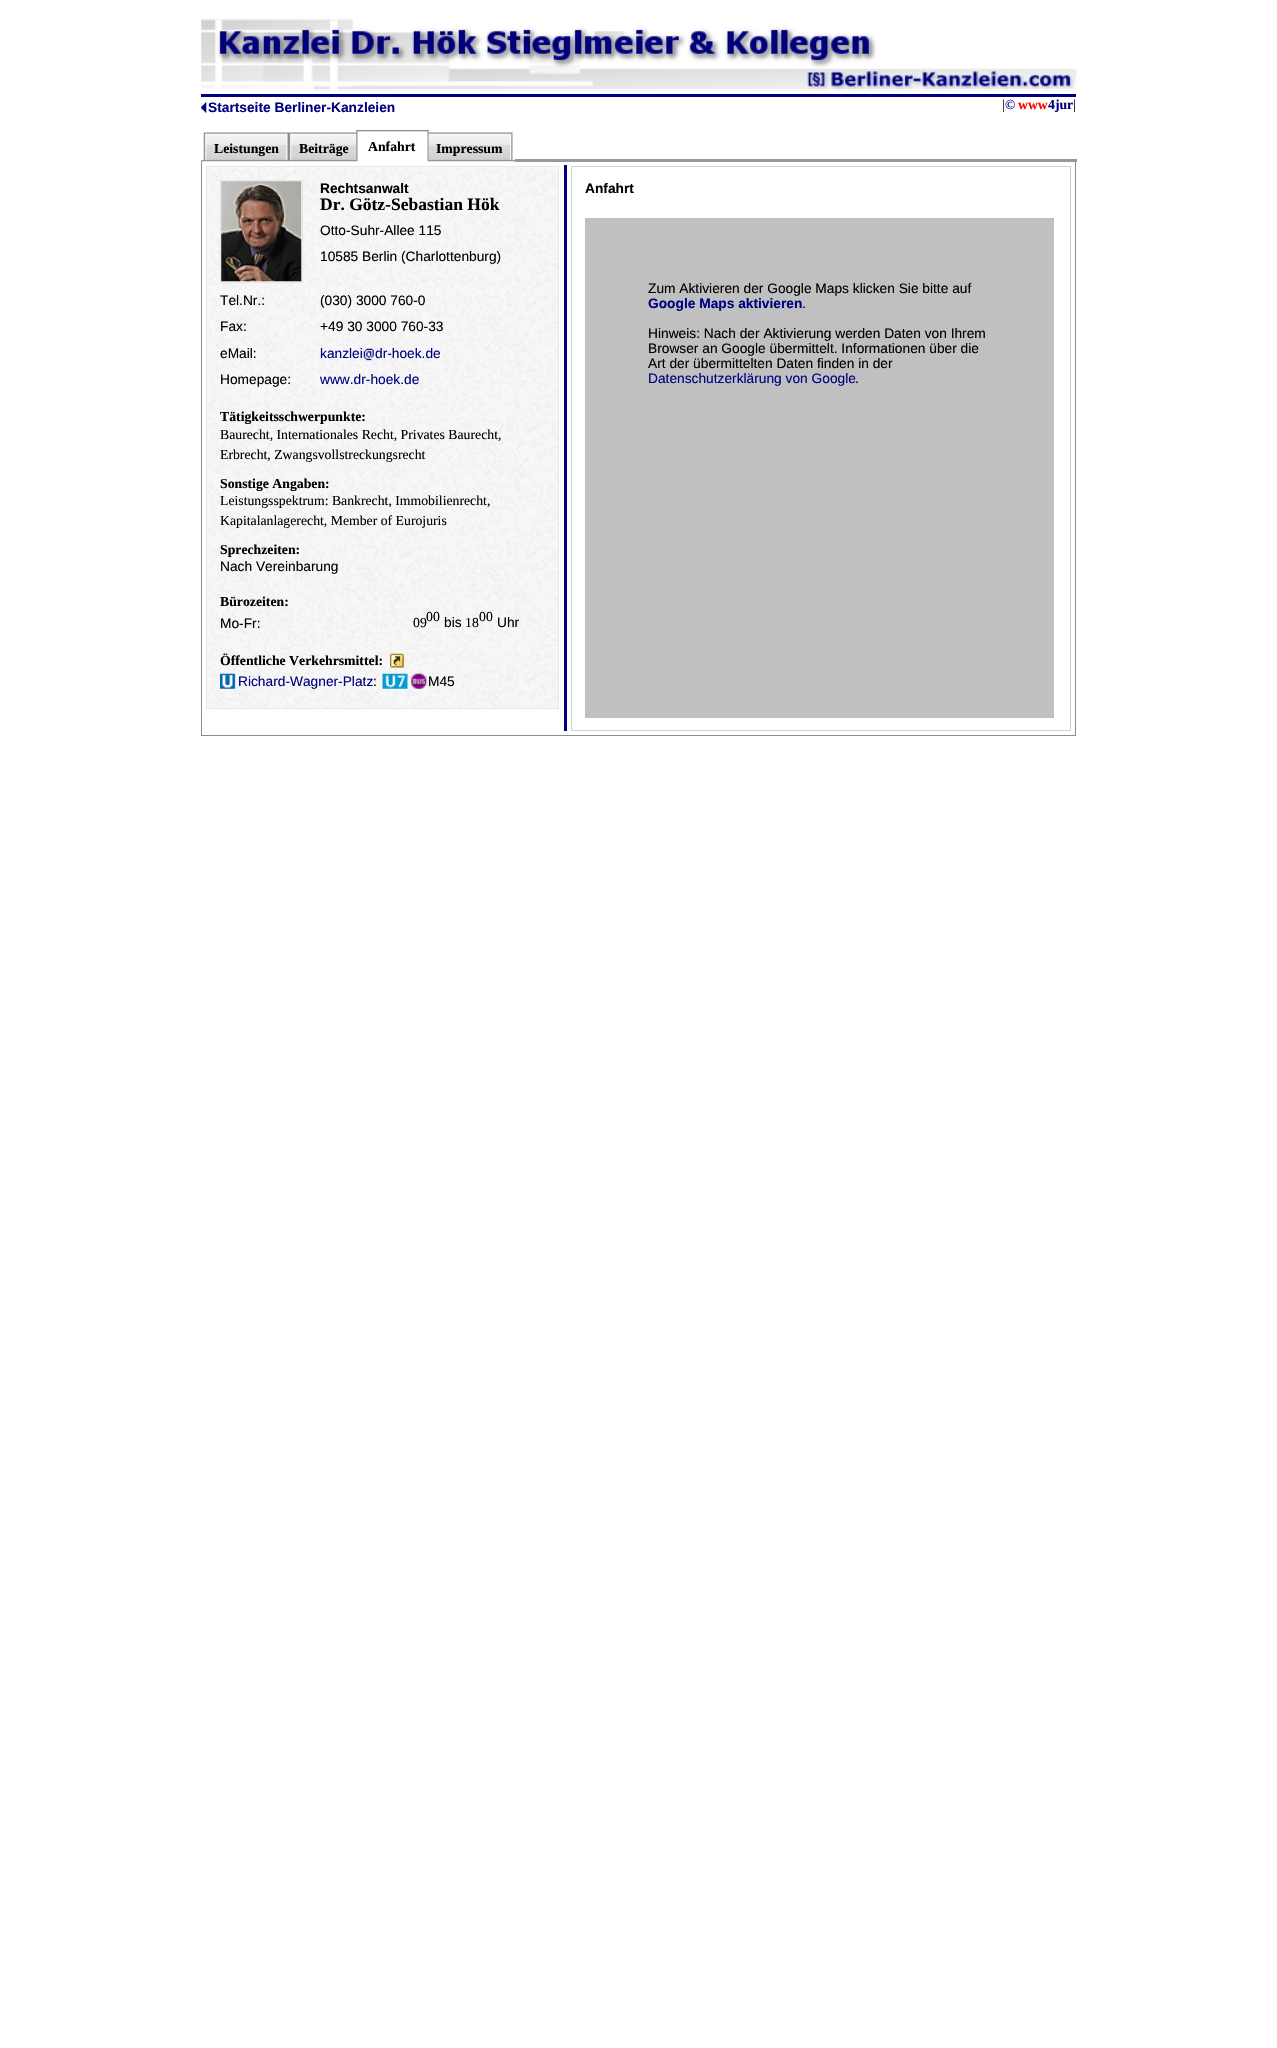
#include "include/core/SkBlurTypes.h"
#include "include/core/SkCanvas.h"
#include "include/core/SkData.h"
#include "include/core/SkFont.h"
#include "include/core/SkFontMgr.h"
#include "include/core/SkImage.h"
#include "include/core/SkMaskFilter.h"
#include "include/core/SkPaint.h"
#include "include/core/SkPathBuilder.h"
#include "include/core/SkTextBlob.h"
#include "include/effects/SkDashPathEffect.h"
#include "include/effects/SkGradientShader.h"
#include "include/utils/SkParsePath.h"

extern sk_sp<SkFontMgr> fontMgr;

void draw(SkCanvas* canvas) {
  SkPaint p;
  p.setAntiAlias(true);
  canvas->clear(SK_ColorWHITE);
  canvas->drawImageRect(SkImages::DeferredFromEncodedData(SkData::MakeFromFileName("images/1.png")), SkRect::MakeLTRB(201, 18, 1077, 91), SkSamplingOptions());
  p.setColor(SkColorSetRGB(0, 0, 128));
  canvas->drawRect(SkRect::MakeLTRB(201, 94, 1076, 97), p);
  canvas->drawImageRect(SkImages::DeferredFromEncodedData(SkData::MakeFromFileName("images/2.png")), SkRect::MakeLTRB(201, 102, 207, 113), SkSamplingOptions());
  canvas->drawImageRect(SkImages::DeferredFromEncodedData(SkData::MakeFromFileName("images/3.png")), SkRect::MakeLTRB(201, 132, 207, 162), SkSamplingOptions());
  canvas->drawImageRect(SkImages::DeferredFromEncodedData(SkData::MakeFromFileName("images/4.png")), SkRect::MakeLTRB(206, 132, 287, 162), SkSamplingOptions());
  canvas->drawImageRect(SkImages::DeferredFromEncodedData(SkData::MakeFromFileName("images/5.png")), SkRect::MakeLTRB(286, 132, 292, 162), SkSamplingOptions());
  canvas->drawImageRect(SkImages::DeferredFromEncodedData(SkData::MakeFromFileName("images/6.png")), SkRect::MakeLTRB(291, 132, 357, 162), SkSamplingOptions());
  canvas->drawImageRect(SkImages::DeferredFromEncodedData(SkData::MakeFromFileName("images/7.png")), SkRect::MakeLTRB(356, 130, 362, 162), SkSamplingOptions());
  canvas->drawImageRect(SkImages::DeferredFromEncodedData(SkData::MakeFromFileName("images/8.png")), SkRect::MakeLTRB(361, 130, 424, 132), SkSamplingOptions());
  canvas->drawImageRect(SkImages::DeferredFromEncodedData(SkData::MakeFromFileName("images/9.png")), SkRect::MakeLTRB(423, 130, 429, 162), SkSamplingOptions());
  canvas->drawImageRect(SkImages::DeferredFromEncodedData(SkData::MakeFromFileName("images/10.png")), SkRect::MakeLTRB(428, 132, 510, 162), SkSamplingOptions());
  canvas->drawImageRect(SkImages::DeferredFromEncodedData(SkData::MakeFromFileName("images/11.png")), SkRect::MakeLTRB(510, 132, 515, 162), SkSamplingOptions());
  p.setColor(SkColorSetRGB(148, 152, 160));
  canvas->drawRect(SkRect::MakeLTRB(515, 159, 1077, 162), p);
  p.setColor(SkColorSetRGB(137, 140, 149));
  canvas->drawRect(SkRect::MakeLTRB(1075, 161, 1076, 736), p);
  canvas->drawRect(SkRect::MakeLTRB(201, 735, 1076, 736), p);
  canvas->drawRect(SkRect::MakeLTRB(201, 161, 202, 736), p);
  p.setColor(SkColorSetRGB(0, 0, 128));
  canvas->drawRect(SkRect::MakeLTRB(564, 165, 567, 731), p);
  canvas->drawImageRect(SkImages::DeferredFromEncodedData(SkData::MakeFromFileName("images/12.png")), SkRect::MakeLTRB(207, 167, 558, 708), SkSamplingOptions());
  p.setStyle(SkPaint::kStroke_Style);
  p.setStrokeWidth(1);
  p.setColor(SkColorSetRGB(232, 232, 232));
  canvas->drawRect(SkRect::MakeLTRB(206.5f, 166.5f, 558.5f, 708.5f), p);
  canvas->drawRect(SkRect::MakeLTRB(220.5f, 180.5f, 302.5f, 282.5f), p);
  canvas->drawImageRect(SkImages::DeferredFromEncodedData(SkData::MakeFromFileName("images/13.png")), SkRect::MakeLTRB(221, 181, 302, 282), SkSamplingOptions());
  canvas->drawImageRect(SkImages::DeferredFromEncodedData(SkData::MakeFromFileName("images/14.png")), SkRect::MakeLTRB(363, 348, 374, 361), SkSamplingOptions());
  canvas->drawImageRect(SkImages::DeferredFromEncodedData(SkData::MakeFromFileName("images/15.png")), SkRect::MakeLTRB(390, 653, 404, 668), SkSamplingOptions());
  canvas->drawImageRect(SkImages::DeferredFromEncodedData(SkData::MakeFromFileName("images/16.png")), SkRect::MakeLTRB(220, 673, 236, 689), SkSamplingOptions());
  canvas->drawImageRect(SkImages::DeferredFromEncodedData(SkData::MakeFromFileName("images/17.png")), SkRect::MakeLTRB(382, 673, 408, 689), SkSamplingOptions());
  canvas->drawImageRect(SkImages::DeferredFromEncodedData(SkData::MakeFromFileName("images/18.png")), SkRect::MakeLTRB(411, 673, 427, 689), SkSamplingOptions());
  p.setColor(SkColorSetRGB(208, 208, 208));
  canvas->drawRect(SkRect::MakeLTRB(571.5f, 166.5f, 1070.5f, 730.5f), p);
  p.setStyle(SkPaint::kFill_Style);
  p.setColor(SkColorSetRGB(192, 192, 192));
  canvas->drawRect(SkRect::MakeLTRB(585, 218, 1054, 718), p);
  SkFont font1(fontMgr->matchFamilyStyle("Liberation Sans", SkFontStyle::Bold()), 13.75f);
  font1.setSubpixel(true);
  p.setColor(SkColorSetRGB(0, 0, 128));
  canvas->drawString("Startseite Berliner-Kanzleien", 208, 112, font1, p);
  SkFont font2(fontMgr->matchFamilyStyle("Liberation Serif", SkFontStyle::Normal()), 13.75f);
  font2.setSubpixel(true);
  p.setColor(SK_ColorBLACK);
  canvas->drawString("|", 1002, 109, font2, p);
  p.setColor(SkColorSetRGB(0, 0, 128));
  canvas->drawString("©", 1005, 109, font2, p);
  SkFont font3(fontMgr->matchFamilyStyle("Liberation Serif", SkFontStyle::Bold()), 13.75f);
  font3.setSubpixel(true);
  p.setColor(SkColorSetRGB(255, 0, 0));
  canvas->drawString("www", 1018, 109, font3, p);
  p.setColor(SkColorSetRGB(0, 0, 128));
  canvas->drawString("4jur", 1048, 109, font3, p);
  p.setColor(SK_ColorBLACK);
  canvas->drawString("|", 1073, 109, font2, p);
  canvas->drawString("Leistungen", 214, 153, font3, p);
  canvas->drawString("Beiträge", 299, 153, font3, p);
  canvas->drawString("Anfahrt", 368, 151, font3, p);
  canvas->drawString("Impressum", 436, 153, font3, p);
  canvas->drawString("Rechtsanwalt", 320, 193, font1, p);
  SkFont font4(fontMgr->matchFamilyStyle("Liberation Serif", SkFontStyle::Bold()), 17.5f);
  font4.setSubpixel(true);
  canvas->drawString("Dr. Götz-Sebastian Hök", 320, 210, font4, p);
  SkFont font5(fontMgr->matchFamilyStyle("Liberation Sans", SkFontStyle::Normal()), 13.75f);
  font5.setSubpixel(true);
  canvas->drawString("Otto-Suhr-Allee 115", 320, 235, font5, p);
  canvas->drawString("10585 Berlin (Charlottenburg)", 320, 261, font5, p);
  canvas->drawString("Tel.Nr.:", 220, 305, font5, p);
  canvas->drawString("(030) 3000 760-0", 320, 305, font5, p);
  canvas->drawString("Fax:", 220, 331, font5, p);
  canvas->drawString("+49 30 3000 760-33", 320, 331, font5, p);
  canvas->drawString("eMail:", 220, 358, font5, p);
  p.setColor(SkColorSetRGB(0, 0, 128));
  canvas->drawString("kanzlei", 320, 358, font5, p);
  canvas->drawString("dr-hoek.de", 375, 358, font5, p);
  p.setColor(SK_ColorBLACK);
  canvas->drawString("Homepage:", 220, 384, font5, p);
  p.setColor(SkColorSetRGB(0, 0, 128));
  canvas->drawString("www.dr-hoek.de", 320, 384, font5, p);
  p.setColor(SK_ColorBLACK);
  canvas->drawString("Tätigkeitsschwerpunkte:", 220, 421, font3, p);
  canvas->drawString("Baurecht, Internationales Recht, Privates Baurecht,", 220, 439, font2, p);
  canvas->drawString("Erbrecht, Zwangsvollstreckungsrecht", 220, 459, font2, p);
  canvas->drawString("Sonstige Angaben:", 220, 488, font3, p);
  canvas->drawString("Leistungsspektrum: Bankrecht, Immobilienrecht,", 220, 505, font2, p);
  canvas->drawString("Kapitalanlagerecht, Member of Eurojuris", 220, 525, font2, p);
  canvas->drawString("Sprechzeiten:", 220, 554, font3, p);
  canvas->drawString("Nach Vereinbarung", 220, 571, font5, p);
  canvas->drawString("Bürozeiten:", 220, 606, font3, p);
  canvas->drawString("Mo-Fr:", 220, 628, font5, p);
  canvas->drawString("09", 413, 627, font2, p);
  canvas->drawString("00", 426, 621, font2, p);
  canvas->drawString("bis", 444, 627, font5, p);
  canvas->drawString("18", 465, 627, font2, p);
  canvas->drawString("00", 479, 621, font2, p);
  canvas->drawString("Uhr", 497, 627, font5, p);
  canvas->drawString("Öffentliche Verkehrsmittel:", 220, 665, font3, p);
  p.setColor(SkColorSetRGB(0, 0, 128));
  canvas->drawString("Richard-Wagner-Platz", 238, 686, font5, p);
  p.setColor(SK_ColorBLACK);
  canvas->drawString(":", 373, 686, font5, p);
  canvas->drawString("M45", 428, 686, font5, p);
  canvas->drawString("Anfahrt", 585, 193, font1, p);
  canvas->drawString("Zum Aktivieren der Google Maps klicken Sie bitte auf", 648, 293, font5, p);
  p.setColor(SkColorSetRGB(0, 0, 128));
  canvas->drawString("Google Maps aktivieren", 648, 308, font1, p);
  p.setColor(SK_ColorBLACK);
  canvas->drawString(".", 802, 308, font5, p);
  canvas->drawString("Hinweis: Nach der Aktivierung werden Daten von Ihrem", 648, 338, font5, p);
  canvas->drawString("Browser an Google übermittelt. Informationen über die", 648, 353, font5, p);
  canvas->drawString("Art der übermittelten Daten finden in der", 648, 368, font5, p);
  p.setColor(SkColorSetRGB(0, 0, 128));
  canvas->drawString("Datenschutzerklärung von Google", 648, 383, font5, p);
  p.setColor(SK_ColorBLACK);
  canvas->drawString(".", 855, 383, font5, p);
}
